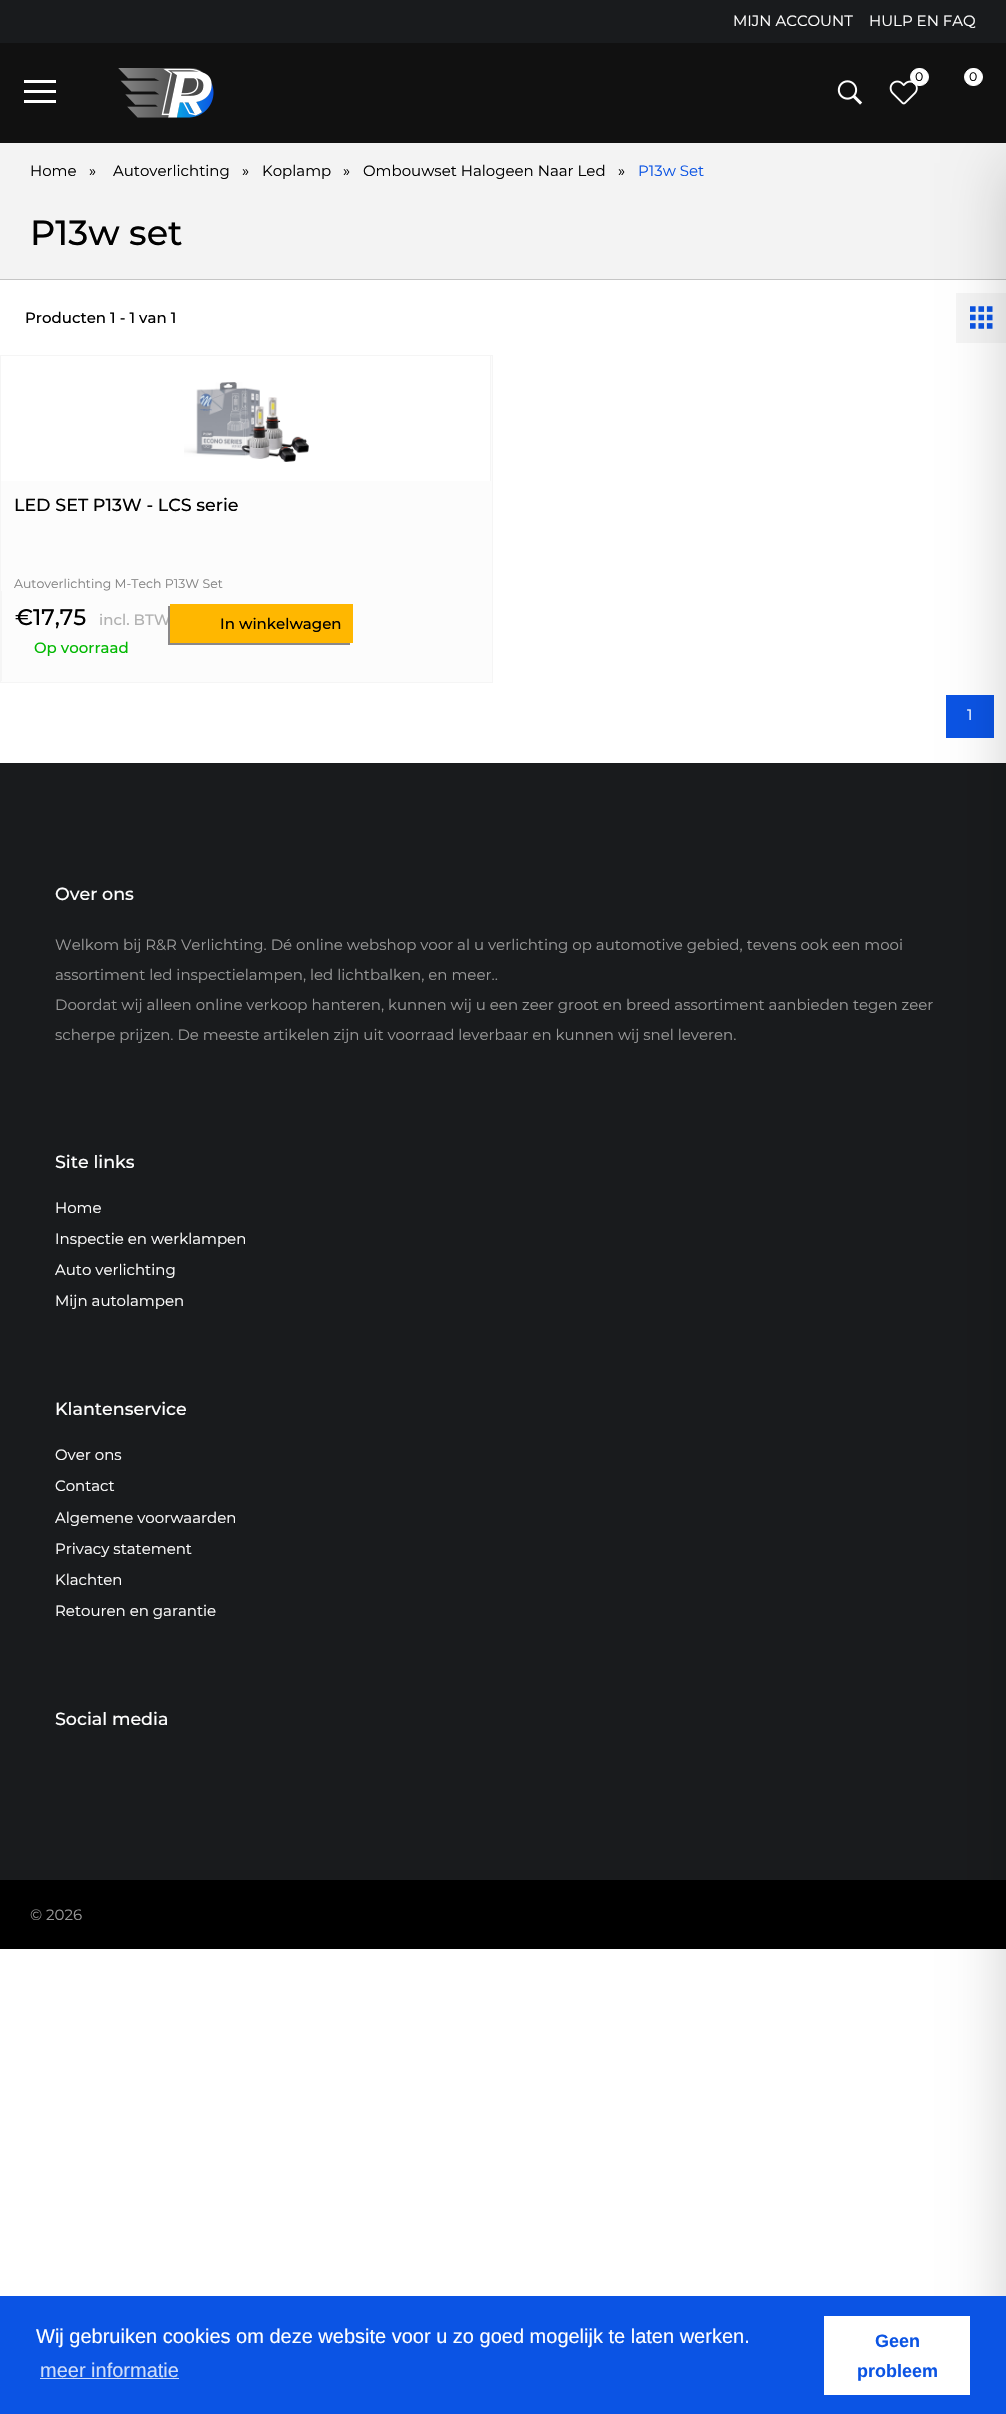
#include "include/core/SkBlurTypes.h"
#include "include/core/SkCanvas.h"
#include "include/core/SkData.h"
#include "include/core/SkFont.h"
#include "include/core/SkFontMgr.h"
#include "include/core/SkImage.h"
#include "include/core/SkMaskFilter.h"
#include "include/core/SkPaint.h"
#include "include/core/SkPathBuilder.h"
#include "include/core/SkTextBlob.h"
#include "include/effects/SkDashPathEffect.h"
#include "include/effects/SkGradientShader.h"
#include "include/utils/SkParsePath.h"

extern sk_sp<SkFontMgr> fontMgr;

void draw(SkCanvas* canvas) {
  SkPaint p;
  p.setAntiAlias(true);
  canvas->clear(SK_ColorWHITE);
  p.setColor(SkColorSetRGB(25, 27, 29));
  canvas->drawRect(SkRect::MakeLTRB(0, 0, 1006, 43), p);
  p.setColor(SkColorSetRGB(17, 17, 17));
  canvas->drawRect(SkRect::MakeLTRB(0, 43, 1006, 143), p);
  canvas->drawImageRect(SkImages::DeferredFromEncodedData(SkData::MakeFromFileName("images/1.png")), SkRect::MakeLTRB(118, 68, 214, 118), SkSamplingOptions());
  canvas->drawImageRect(SkImages::DeferredFromEncodedData(SkData::MakeFromFileName("images/2.png")), SkRect::MakeLTRB(889, 80, 918, 105), SkSamplingOptions());
  p.setColor(SK_ColorWHITE);
  canvas->drawRoundRect(SkRect::MakeLTRB(910.5f, 68.5f, 928.5f, 85.5f), 8.5f, 8.5f, p);
  p.setStyle(SkPaint::kStroke_Style);
  p.setStrokeWidth(1);
  canvas->drawRoundRect(SkRect::MakeLTRB(910.5f, 68.5f, 928.5f, 85.5f), 8.5f, 8.5f, p);
  p.setStyle(SkPaint::kFill_Style);
  canvas->drawRoundRect(SkRect::MakeLTRB(964.5f, 68.5f, 982.5f, 85.5f), 8.5f, 8.5f, p);
  p.setStyle(SkPaint::kStroke_Style);
  canvas->drawRoundRect(SkRect::MakeLTRB(964.5f, 68.5f, 982.5f, 85.5f), 8.5f, 8.5f, p);
  canvas->drawImageRect(SkImages::DeferredFromEncodedData(SkData::MakeFromFileName("images/3.png")), SkRect::MakeLTRB(837, 80, 863, 105), SkSamplingOptions());
  p.setStyle(SkPaint::kFill_Style);
  canvas->drawRect(SkRect::MakeLTRB(24, 90, 56, 93), p);
  canvas->drawRect(SkRect::MakeLTRB(24, 80, 56, 83), p);
  canvas->drawRect(SkRect::MakeLTRB(24, 100, 56, 103), p);
  p.setColor(SkColorSetRGB(243, 243, 243));
  canvas->drawRect(SkRect::MakeLTRB(0, 143, 1006, 279), p);
  p.setColor(SkColorSetRGB(197, 197, 197));
  canvas->drawRect(SkRect::MakeLTRB(0, 279, 1006, 280), p);
  p.setColor(SkColorSetRGB(245, 245, 245));
  canvas->drawRect(SkRect::MakeLTRB(956, 293, 1006, 343), p);
  canvas->drawImageRect(SkImages::DeferredFromEncodedData(SkData::MakeFromFileName("images/4.png")), SkRect::MakeLTRB(970, 306, 993, 329), SkSamplingOptions());
  p.setColor(SkColorSetRGB(11, 84, 228));
  canvas->drawRect(SkRect::MakeLTRB(946, 695, 994, 738), p);
  p.setColor(SkColorSetRGB(25, 27, 29));
  canvas->drawRect(SkRect::MakeLTRB(0, 763, 1006, 1880), p);
  p.setColor(SK_ColorBLACK);
  canvas->drawRect(SkRect::MakeLTRB(0, 1880, 1006, 1949), p);
  p.setColor(SkColorSetARGB(46, 0, 0, 0));
  p.setMaskFilter(SkMaskFilter::MakeBlur(kNormal_SkBlurStyle, 30));
  canvas->drawRect(SkRect::MakeLTRB(1006, 163, 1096, 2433), p);
  p.setMaskFilter(nullptr);
  p.setColor(SkColorSetRGB(252, 252, 252));
  canvas->drawRect(SkRect::MakeLTRB(0.5f, 355.5f, 492.5f, 682.5f), p);
  p.setStyle(SkPaint::kStroke_Style);
  p.setColor(SkColorSetRGB(245, 245, 245));
  canvas->drawRect(SkRect::MakeLTRB(0.5f, 355.5f, 492.5f, 682.5f), p);
  p.setStyle(SkPaint::kFill_Style);
  p.setColor(SK_ColorWHITE);
  canvas->drawRect(SkRect::MakeLTRB(1, 356, 490, 481), p);
  p.setColor(SkColorSetRGB(245, 245, 245));
  canvas->drawRect(SkRect::MakeLTRB(490, 356, 491, 481), p);
  canvas->drawImageRect(SkImages::DeferredFromEncodedData(SkData::MakeFromFileName("images/5.png")), SkRect::MakeLTRB(184, 382, 309, 462), SkSamplingOptions());
  canvas->drawRect(SkRect::MakeLTRB(1, 591, 2, 681), p);
  p.setColor(SkColorSetRGB(11, 84, 228));
  canvas->drawRect(SkRect::MakeLTRB(0, 2296, 1006, 2414), p);
  p.setColor(SkColorSetRGB(206, 221, 250));
  canvas->drawRect(SkRect::MakeLTRB(40, 2378, 179, 2379), p);
  p.setColor(SK_ColorWHITE);
  canvas->drawRect(SkRect::MakeLTRB(824, 2316, 970, 2395), p);
  SkFont font1(fontMgr->matchFamilyStyle("Montserrat", SkFontStyle::Normal()), 15);
  font1.setSubpixel(true);
  canvas->drawString("MIJN ACCOUNT", 733, 26, font1, p);
  canvas->drawString("HULP EN FAQ", 869, 26, font1, p);
  SkFont font2(fontMgr->matchFamilyStyle("Montserrat", SkFontStyle::Normal()), 12.5f);
  font2.setSubpixel(true);
  p.setColor(SK_ColorBLACK);
  canvas->drawString("0", 915, 81, font2, p);
  canvas->drawString("0", 969, 81, font2, p);
  canvas->drawString("Home", 30, 176, font1, p);
  canvas->drawString("»", 89, 176, font1, p);
  canvas->drawString("Autoverlichting", 113, 176, font1, p);
  canvas->drawString("»", 242, 176, font1, p);
  canvas->drawString("Koplamp", 262, 176, font1, p);
  canvas->drawString("»", 343, 176, font1, p);
  canvas->drawString("Ombouwset Halogeen Naar Led", 363, 176, font1, p);
  canvas->drawString("»", 618, 176, font1, p);
  p.setColor(SkColorSetRGB(11, 84, 228));
  canvas->drawString("P13w Set", 638, 176, font1, p);
  SkFont font3(fontMgr->matchFamilyStyle("Montserrat", SkFontStyle(500, SkFontStyle::kNormal_Width, SkFontStyle::kUpright_Slant)), 35);
  font3.setSubpixel(true);
  p.setColor(SK_ColorBLACK);
  canvas->drawString("P13w set", 30, 245, font3, p);
  SkFont font4(fontMgr->matchFamilyStyle("Montserrat", SkFontStyle(500, SkFontStyle::kNormal_Width, SkFontStyle::kUpright_Slant)), 15);
  font4.setSubpixel(true);
  canvas->drawString("Producten 1 - 1 van 1", 25, 323, font4, p);
  SkFont font5(fontMgr->matchFamilyStyle("Montserrat", SkFontStyle(500, SkFontStyle::kNormal_Width, SkFontStyle::kUpright_Slant)), 17.5f);
  font5.setSubpixel(true);
  canvas->drawString("LED SET P13W - LCS serie", 14, 511, font5, p);
  p.setColor(SkColorSetRGB(131, 131, 131));
  canvas->drawString("Autoverlichting M-Tech P13W Set", 14, 588, font2, p);
  SkFont font6(fontMgr->matchFamilyStyle("Montserrat", SkFontStyle(500, SkFontStyle::kNormal_Width, SkFontStyle::kUpright_Slant)), 22.5f);
  font6.setSubpixel(true);
  p.setColor(SK_ColorBLACK);
  canvas->drawString("€17,75", 15, 625, font6, p);
  p.setColor(SkColorSetRGB(177, 177, 177));
  canvas->drawString("incl. BTW", 99, 625, font4, p);
  p.setColor(SkColorSetRGB(2, 185, 2));
  canvas->drawString("Op voorraad", 34, 653, font4, p);
  p.setColor(SkColorSetRGB(138, 136, 138));
  canvas->drawPath(SkPathBuilder().moveTo(168, 606).lineTo(168, 645).lineTo(350, 645).lineTo(350, 642).lineTo(170, 642).lineTo(170, 606).close().detach(), p);
  p.setColor(SkColorSetRGB(255, 183, 0));
  canvas->drawRect(SkRect::MakeLTRB(170, 604, 353, 643), p);
  p.setColor(SK_ColorBLACK);
  canvas->drawString("In winkelwagen", 220, 629, font4, p);
  p.setColor(SK_ColorWHITE);
  canvas->drawString("1", 967, 720, font1, p);
  canvas->drawString("Over ons", 55, 900, font5, p);
  p.setColor(SkColorSetRGB(152, 152, 152));
  canvas->drawString("Welkom bij R&R Verlichting. Dé online webshop voor al u verlichting op automotive gebied, tevens ook een mooi", 55, 950, font1, p);
  canvas->drawString("assortiment led inspectielampen, led lichtbalken, en meer..", 55, 980, font1, p);
  canvas->drawString("Doordat wij alleen online verkoop hanteren, kunnen wij u een zeer groot en breed assortiment aanbieden tegen zeer", 55, 1010, font1, p);
  canvas->drawString("scherpe prijzen. De meeste artikelen zijn uit voorraad leverbaar en kunnen wij snel leveren.", 55, 1040, font1, p);
  p.setColor(SK_ColorWHITE);
  canvas->drawString("Site links", 55, 1168, font5, p);
  canvas->drawString("Home", 55, 1213, font1, p);
  canvas->drawString("Inspectie en werklampen", 55, 1244, font1, p);
  canvas->drawString("Auto verlichting", 55, 1275, font1, p);
  canvas->drawString("Mijn autolampen", 55, 1306, font1, p);
  canvas->drawString("Klantenservice", 55, 1415, font5, p);
  canvas->drawString("Over ons", 55, 1460, font1, p);
  canvas->drawString("Contact", 55, 1491, font1, p);
  canvas->drawString("Algemene voorwaarden", 55, 1523, font1, p);
  canvas->drawString("Privacy statement", 55, 1554, font1, p);
  canvas->drawString("Klachten", 55, 1585, font1, p);
  canvas->drawString("Retouren en garantie", 55, 1616, font1, p);
  canvas->drawString("Social media", 55, 1725, font5, p);
  p.setColor(SkColorSetRGB(152, 152, 152));
  canvas->drawString("© 2026", 30, 1920, font1, p);
  SkFont font7(fontMgr->matchFamilyStyle("Liberation Sans", SkFontStyle::Normal()), 20);
  font7.setSubpixel(true);
  p.setColor(SK_ColorWHITE);
  canvas->drawString("Wij gebruiken cookies om deze website voor u zo goed mogelijk te laten werken.", 36, 2343, font7, p);
  p.setColor(SkColorSetRGB(206, 221, 250));
  canvas->drawString("meer informatie", 40, 2377, font7, p);
  SkFont font8(fontMgr->matchFamilyStyle("Liberation Sans", SkFontStyle::Bold()), 18);
  font8.setSubpixel(true);
  p.setColor(SkColorSetRGB(11, 84, 228));
  canvas->drawString("Geen", 875, 2347, font8, p);
  canvas->drawString("probleem", 857, 2377, font8, p);
}
